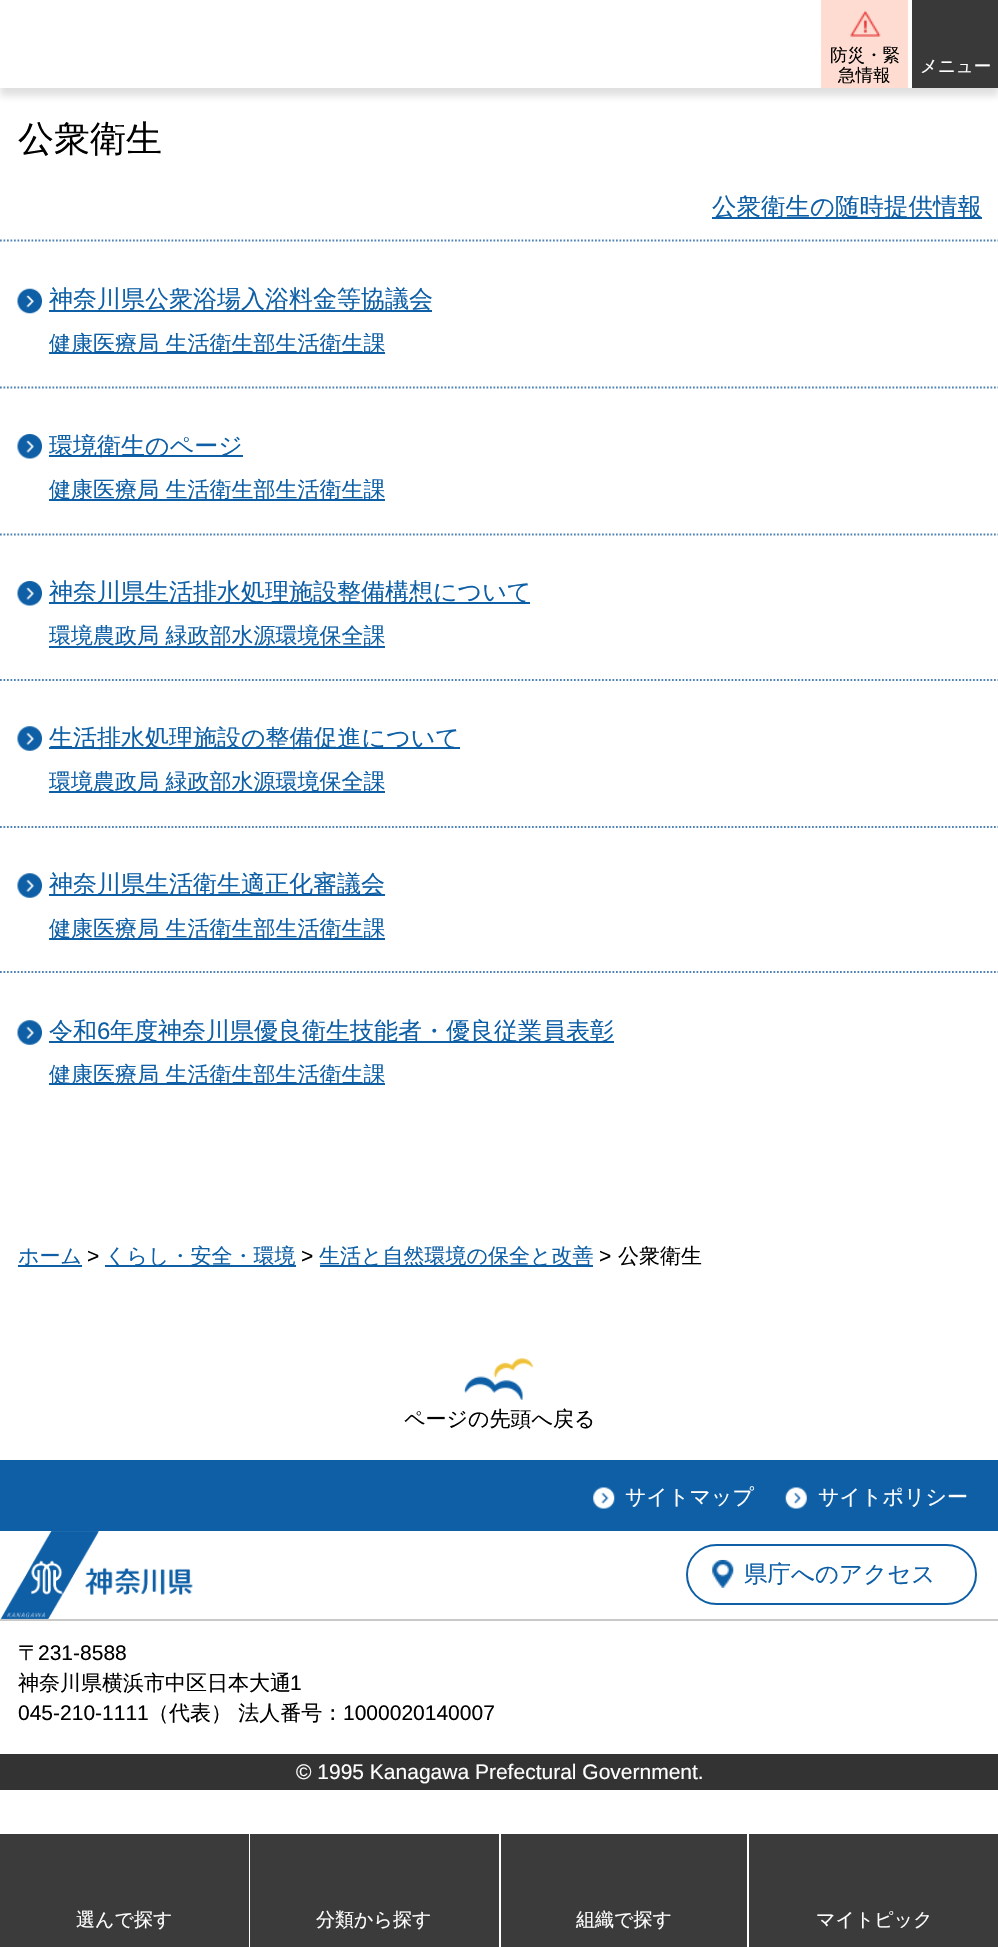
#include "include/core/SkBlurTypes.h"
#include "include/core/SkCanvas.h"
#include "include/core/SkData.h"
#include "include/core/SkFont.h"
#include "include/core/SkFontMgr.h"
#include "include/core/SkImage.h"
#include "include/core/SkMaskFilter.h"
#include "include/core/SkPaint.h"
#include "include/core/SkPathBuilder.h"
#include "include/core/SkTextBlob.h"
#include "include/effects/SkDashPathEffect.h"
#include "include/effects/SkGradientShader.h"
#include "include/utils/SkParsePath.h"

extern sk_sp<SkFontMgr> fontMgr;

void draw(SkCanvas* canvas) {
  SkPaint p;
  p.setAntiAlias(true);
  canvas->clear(SK_ColorWHITE);
  canvas->save();
  canvas->clipPath(SkPathBuilder(SkPathFillType::kEvenOdd).moveTo(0, 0).lineTo(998, 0).lineTo(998, 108).lineTo(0, 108).close().moveTo(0, 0).lineTo(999, 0).lineTo(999, 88).lineTo(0, 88).close().detach(), true);
  p.setColor(SkColorSetARGB(38, 50, 50, 50));
  p.setMaskFilter(SkMaskFilter::MakeBlur(kNormal_SkBlurStyle, 3.5f));
  canvas->drawRect(SkRect::MakeLTRB(0, 9, 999, 96), p);
  p.setMaskFilter(nullptr);
  canvas->restore();
  p.setColor(SkColorSetRGB(255, 220, 209));
  canvas->drawRect(SkRect::MakeLTRB(821, 0, 908, 88), p);
  canvas->drawImageRect(SkImages::DeferredFromEncodedData(SkData::MakeFromFileName("images/1.png")), SkRect::MakeLTRB(850, 10, 881, 37), SkSamplingOptions());
  p.setColor(SkColorSetRGB(57, 57, 57));
  canvas->drawRect(SkRect::MakeLTRB(912, 0, 998, 88), p);
  p.setColor(SK_ColorWHITE);
  canvas->drawRect(SkRect::MakeLTRB(0, 87, 366, 88), p);
  p.setColor(SkColorSetRGB(14, 95, 166));
  canvas->drawRect(SkRect::MakeLTRB(712, 217, 982, 219), p);
  p.setStyle(SkPaint::kStroke_Style);
  p.setStrokeWidth(1.8f);
  p.setColor(SkColorSetRGB(79, 130, 180));
  p.setPathEffect(SkDashPathEffect::Make({{1.75f, 1.75f}}, 0));
  canvas->drawPath(SkPathBuilder().moveTo(0, 240.5f).lineTo(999, 240.5f).detach(), p);
  p.setPathEffect(nullptr);
  canvas->drawImageRect(SkImages::DeferredFromEncodedData(SkData::MakeFromFileName("images/2.png")), SkRect::MakeLTRB(17, 288, 42, 314), SkSamplingOptions());
  p.setStyle(SkPaint::kFill_Style);
  p.setColor(SkColorSetRGB(14, 95, 166));
  canvas->drawRect(SkRect::MakeLTRB(49, 310, 432, 312), p);
  canvas->drawRect(SkRect::MakeLTRB(49, 352, 385, 354), p);
  p.setStyle(SkPaint::kStroke_Style);
  p.setColor(SkColorSetRGB(79, 130, 180));
  p.setPathEffect(SkDashPathEffect::Make({{1.75f, 1.75f}}, 0));
  canvas->drawPath(SkPathBuilder().moveTo(0, 387.5f).lineTo(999, 387.5f).detach(), p);
  p.setPathEffect(nullptr);
  canvas->drawImageRect(SkImages::DeferredFromEncodedData(SkData::MakeFromFileName("images/3.png")), SkRect::MakeLTRB(17, 434, 42, 459), SkSamplingOptions());
  p.setStyle(SkPaint::kFill_Style);
  p.setColor(SkColorSetRGB(14, 95, 166));
  canvas->drawRect(SkRect::MakeLTRB(49, 455, 243, 457), p);
  canvas->drawRect(SkRect::MakeLTRB(49, 499, 385, 501), p);
  p.setStyle(SkPaint::kStroke_Style);
  p.setColor(SkColorSetRGB(79, 130, 180));
  p.setPathEffect(SkDashPathEffect::Make({{1.75f, 1.75f}}, 0));
  canvas->drawPath(SkPathBuilder().moveTo(0, 534.5f).lineTo(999, 534.5f).detach(), p);
  p.setPathEffect(nullptr);
  canvas->drawImageRect(SkImages::DeferredFromEncodedData(SkData::MakeFromFileName("images/3.png")), SkRect::MakeLTRB(17, 581, 42, 606), SkSamplingOptions());
  p.setStyle(SkPaint::kFill_Style);
  p.setColor(SkColorSetRGB(14, 95, 166));
  canvas->drawRect(SkRect::MakeLTRB(49, 602, 530, 604), p);
  canvas->drawRect(SkRect::MakeLTRB(49, 646, 385, 648), p);
  p.setStyle(SkPaint::kStroke_Style);
  p.setColor(SkColorSetRGB(79, 130, 180));
  p.setPathEffect(SkDashPathEffect::Make({{1.75f, 1.75f}}, 0));
  canvas->drawPath(SkPathBuilder().moveTo(0, 680).lineTo(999, 680).detach(), p);
  p.setPathEffect(nullptr);
  canvas->drawImageRect(SkImages::DeferredFromEncodedData(SkData::MakeFromFileName("images/4.png")), SkRect::MakeLTRB(17, 726, 42, 751), SkSamplingOptions());
  p.setStyle(SkPaint::kFill_Style);
  p.setColor(SkColorSetRGB(14, 95, 166));
  canvas->drawRect(SkRect::MakeLTRB(49, 747, 460, 749), p);
  canvas->drawRect(SkRect::MakeLTRB(49, 791, 385, 793), p);
  p.setStyle(SkPaint::kStroke_Style);
  p.setColor(SkColorSetRGB(79, 130, 180));
  p.setPathEffect(SkDashPathEffect::Make({{1.75f, 1.75f}}, 0));
  canvas->drawPath(SkPathBuilder().moveTo(0, 827).lineTo(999, 827).detach(), p);
  p.setPathEffect(nullptr);
  canvas->drawImageRect(SkImages::DeferredFromEncodedData(SkData::MakeFromFileName("images/4.png")), SkRect::MakeLTRB(17, 873, 42, 898), SkSamplingOptions());
  p.setStyle(SkPaint::kFill_Style);
  p.setColor(SkColorSetRGB(14, 95, 166));
  canvas->drawRect(SkRect::MakeLTRB(49, 894, 385, 896), p);
  canvas->drawRect(SkRect::MakeLTRB(49, 938, 385, 940), p);
  p.setStyle(SkPaint::kStroke_Style);
  p.setColor(SkColorSetRGB(79, 130, 180));
  p.setPathEffect(SkDashPathEffect::Make({{1.75f, 1.75f}}, 0));
  canvas->drawPath(SkPathBuilder().moveTo(0, 972).lineTo(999, 972).detach(), p);
  p.setPathEffect(nullptr);
  canvas->drawImageRect(SkImages::DeferredFromEncodedData(SkData::MakeFromFileName("images/4.png")), SkRect::MakeLTRB(17, 1020, 42, 1045), SkSamplingOptions());
  p.setStyle(SkPaint::kFill_Style);
  p.setColor(SkColorSetRGB(14, 95, 166));
  canvas->drawRect(SkRect::MakeLTRB(49, 1041, 614, 1043), p);
  canvas->drawRect(SkRect::MakeLTRB(49, 1083, 385, 1085), p);
  canvas->drawRect(SkRect::MakeLTRB(18, 1265, 82, 1267), p);
  canvas->drawRect(SkRect::MakeLTRB(105, 1265, 296, 1267), p);
  canvas->drawRect(SkRect::MakeLTRB(320, 1265, 593, 1267), p);
  canvas->drawImageRect(SkImages::DeferredFromEncodedData(SkData::MakeFromFileName("images/5.png")), SkRect::MakeLTRB(463, 1358, 534, 1400), SkSamplingOptions());
  canvas->drawRect(SkRect::MakeLTRB(0, 1460, 998, 1531), p);
  canvas->drawImageRect(SkImages::DeferredFromEncodedData(SkData::MakeFromFileName("images/6.png")), SkRect::MakeLTRB(593, 1487, 615, 1509), SkSamplingOptions());
  canvas->drawImageRect(SkImages::DeferredFromEncodedData(SkData::MakeFromFileName("images/7.png")), SkRect::MakeLTRB(785, 1487, 807, 1509), SkSamplingOptions());
  p.setColor(SkColorSetRGB(201, 201, 201));
  canvas->drawRect(SkRect::MakeLTRB(0, 1619, 998, 1621), p);
  canvas->drawImageRect(SkImages::DeferredFromEncodedData(SkData::MakeFromFileName("images/8.png")), SkRect::MakeLTRB(0, 1531, 193, 1619), SkSamplingOptions());
  canvas->drawImageRect(SkImages::DeferredFromEncodedData(SkData::MakeFromFileName("images/9.png")), SkRect::MakeLTRB(0, 1531, 193, 1619), SkSamplingOptions());
  canvas->drawImageRect(SkImages::DeferredFromEncodedData(SkData::MakeFromFileName("images/10.png")), SkRect::MakeLTRB(712, 1559, 734, 1588), SkSamplingOptions());
  p.setStyle(SkPaint::kStroke_Style);
  p.setStrokeWidth(2);
  p.setColor(SkColorSetRGB(14, 95, 166));
  canvas->drawRoundRect(SkRect::MakeLTRB(687, 1545, 976, 1604), 29.5f, 29.5f, p);
  p.setStyle(SkPaint::kFill_Style);
  p.setColor(SkColorSetRGB(51, 51, 51));
  canvas->drawRect(SkRect::MakeLTRB(0, 1754, 998, 1790), p);
  p.setColor(SkColorSetRGB(58, 59, 58));
  canvas->drawRect(SkRect::MakeLTRB(0, 1834, 249, 1947), p);
  canvas->drawRect(SkRect::MakeLTRB(250, 1834, 499, 1947), p);
  canvas->drawRect(SkRect::MakeLTRB(501, 1834, 747, 1947), p);
  canvas->drawRect(SkRect::MakeLTRB(749, 1834, 998, 1947), p);
  SkFont font1(fontMgr->matchFamilyStyle("WenQuanYi Zen Hei", SkFontStyle(500, SkFontStyle::kNormal_Width, SkFontStyle::kUpright_Slant)), 17.5f);
  font1.setSubpixel(true);
  p.setColor(SK_ColorBLACK);
  canvas->drawString("防災・緊", 830, 61, font1, p);
  canvas->drawString("急情報", 838, 81, font1, p);
  p.setColor(SK_ColorWHITE);
  canvas->drawString("メニュー", 920, 72, font1, p);
  SkFont font2(fontMgr->matchFamilyStyle("WenQuanYi Zen Hei", SkFontStyle(500, SkFontStyle::kNormal_Width, SkFontStyle::kUpright_Slant)), 36);
  font2.setSubpixel(true);
  p.setColor(SK_ColorBLACK);
  canvas->drawString("公衆衛生", 18, 151, font2, p);
  SkFont font3(fontMgr->matchFamilyStyle("WenQuanYi Zen Hei", SkFontStyle(500, SkFontStyle::kNormal_Width, SkFontStyle::kUpright_Slant)), 24.5f);
  font3.setSubpixel(true);
  p.setColor(SkColorSetRGB(14, 95, 166));
  canvas->drawString("公衆衛生の随時提供情報", 712, 215, font3, p);
  SkFont font4(fontMgr->matchFamilyStyle("WenQuanYi Zen Hei", SkFontStyle(500, SkFontStyle::kNormal_Width, SkFontStyle::kUpright_Slant)), 24);
  font4.setSubpixel(true);
  canvas->drawString("神奈川県公衆浴場入浴料金等協議会", 49, 307, font4, p);
  SkFont font5(fontMgr->matchFamilyStyle("WenQuanYi Zen Hei", SkFontStyle(500, SkFontStyle::kNormal_Width, SkFontStyle::kUpright_Slant)), 22);
  font5.setSubpixel(true);
  canvas->drawString("健康医療局 生活衛生部生活衛生課", 49, 351, font5, p);
  canvas->drawString("環境衛生のページ", 49, 454, font4, p);
  canvas->drawString("健康医療局 生活衛生部生活衛生課", 49, 497, font5, p);
  canvas->drawString("神奈川県生活排水処理施設整備構想について", 49, 600, font4, p);
  canvas->drawString("環境農政局 緑政部水源環境保全課", 49, 643, font5, p);
  canvas->drawString("生活排水処理施設の整備促進について", 49, 746, font4, p);
  canvas->drawString("環境農政局 緑政部水源環境保全課", 49, 789, font5, p);
  canvas->drawString("神奈川県生活衛生適正化審議会", 49, 892, font4, p);
  canvas->drawString("健康医療局 生活衛生部生活衛生課", 49, 936, font5, p);
  canvas->drawString("令和", 49, 1039, font4, p);
  SkFont font6(fontMgr->matchFamilyStyle("Liberation Sans", SkFontStyle::Normal()), 24);
  font6.setSubpixel(true);
  canvas->drawString("6", 97, 1039, font6, p);
  canvas->drawString("年度神奈川県優良衛生技能者・優良従業員表彰", 110, 1039, font4, p);
  canvas->drawString("健康医療局 生活衛生部生活衛生課", 49, 1082, font5, p);
  SkFont font7(fontMgr->matchFamilyStyle("WenQuanYi Zen Hei", SkFontStyle(500, SkFontStyle::kNormal_Width, SkFontStyle::kUpright_Slant)), 21);
  font7.setSubpixel(true);
  canvas->drawString("ホーム", 18, 1263, font7, p);
  SkFont font8(fontMgr->matchFamilyStyle("Liberation Sans", SkFontStyle::Normal()), 21);
  font8.setSubpixel(true);
  p.setColor(SK_ColorBLACK);
  canvas->drawString(">", 87, 1263, font8, p);
  p.setColor(SkColorSetRGB(14, 95, 166));
  canvas->drawString("くらし・安全・環境", 105, 1263, font7, p);
  p.setColor(SK_ColorBLACK);
  canvas->drawString(">", 301, 1263, font8, p);
  p.setColor(SkColorSetRGB(14, 95, 166));
  canvas->drawString("生活と自然環境の保全と改善", 319, 1263, font7, p);
  p.setColor(SK_ColorBLACK);
  canvas->drawString(">", 599, 1263, font8, p);
  canvas->drawString("公衆衛生", 618, 1263, font7, p);
  canvas->drawString("ページの先頭へ戻る", 404, 1426, font7, p);
  p.setColor(SK_ColorWHITE);
  canvas->drawString("サイトマップ", 625, 1504, font7, p);
  canvas->drawString("サイトポリシー", 818, 1504, font7, p);
  SkFont font9(fontMgr->matchFamilyStyle("WenQuanYi Zen Hei", SkFontStyle(500, SkFontStyle::kNormal_Width, SkFontStyle::kUpright_Slant)), 23.5f);
  font9.setSubpixel(true);
  p.setColor(SkColorSetRGB(14, 95, 166));
  canvas->drawString("県庁へのアクセス", 744, 1582, font9, p);
  p.setColor(SK_ColorBLACK);
  canvas->drawString("〒", 18, 1660, font7, p);
  canvas->drawString("231-8588", 38, 1660, font8, p);
  canvas->drawString("神奈川県横浜市中区日本大通", 18, 1690, font7, p);
  canvas->drawString("1", 290, 1690, font8, p);
  canvas->drawString("045-210-1111", 18, 1720, font8, p);
  canvas->drawString("（代表） 法人番号：", 148, 1720, font7, p);
  canvas->drawString("1000020140007", 343, 1720, font8, p);
  p.setColor(SK_ColorWHITE);
  canvas->drawString("© 1995 Kanagawa Prefectural Government.", 296, 1779, font8, p);
  SkFont font10(fontMgr->matchFamilyStyle("WenQuanYi Zen Hei", SkFontStyle(500, SkFontStyle::kNormal_Width, SkFontStyle::kUpright_Slant)), 19);
  font10.setSubpixel(true);
  canvas->drawString("選んで探す", 76, 1926, font10, p);
  canvas->drawString("分類から探す", 316, 1926, font10, p);
  canvas->drawString("組織で探す", 576, 1926, font10, p);
  canvas->drawString("マイトピック", 816, 1926, font10, p);
}
